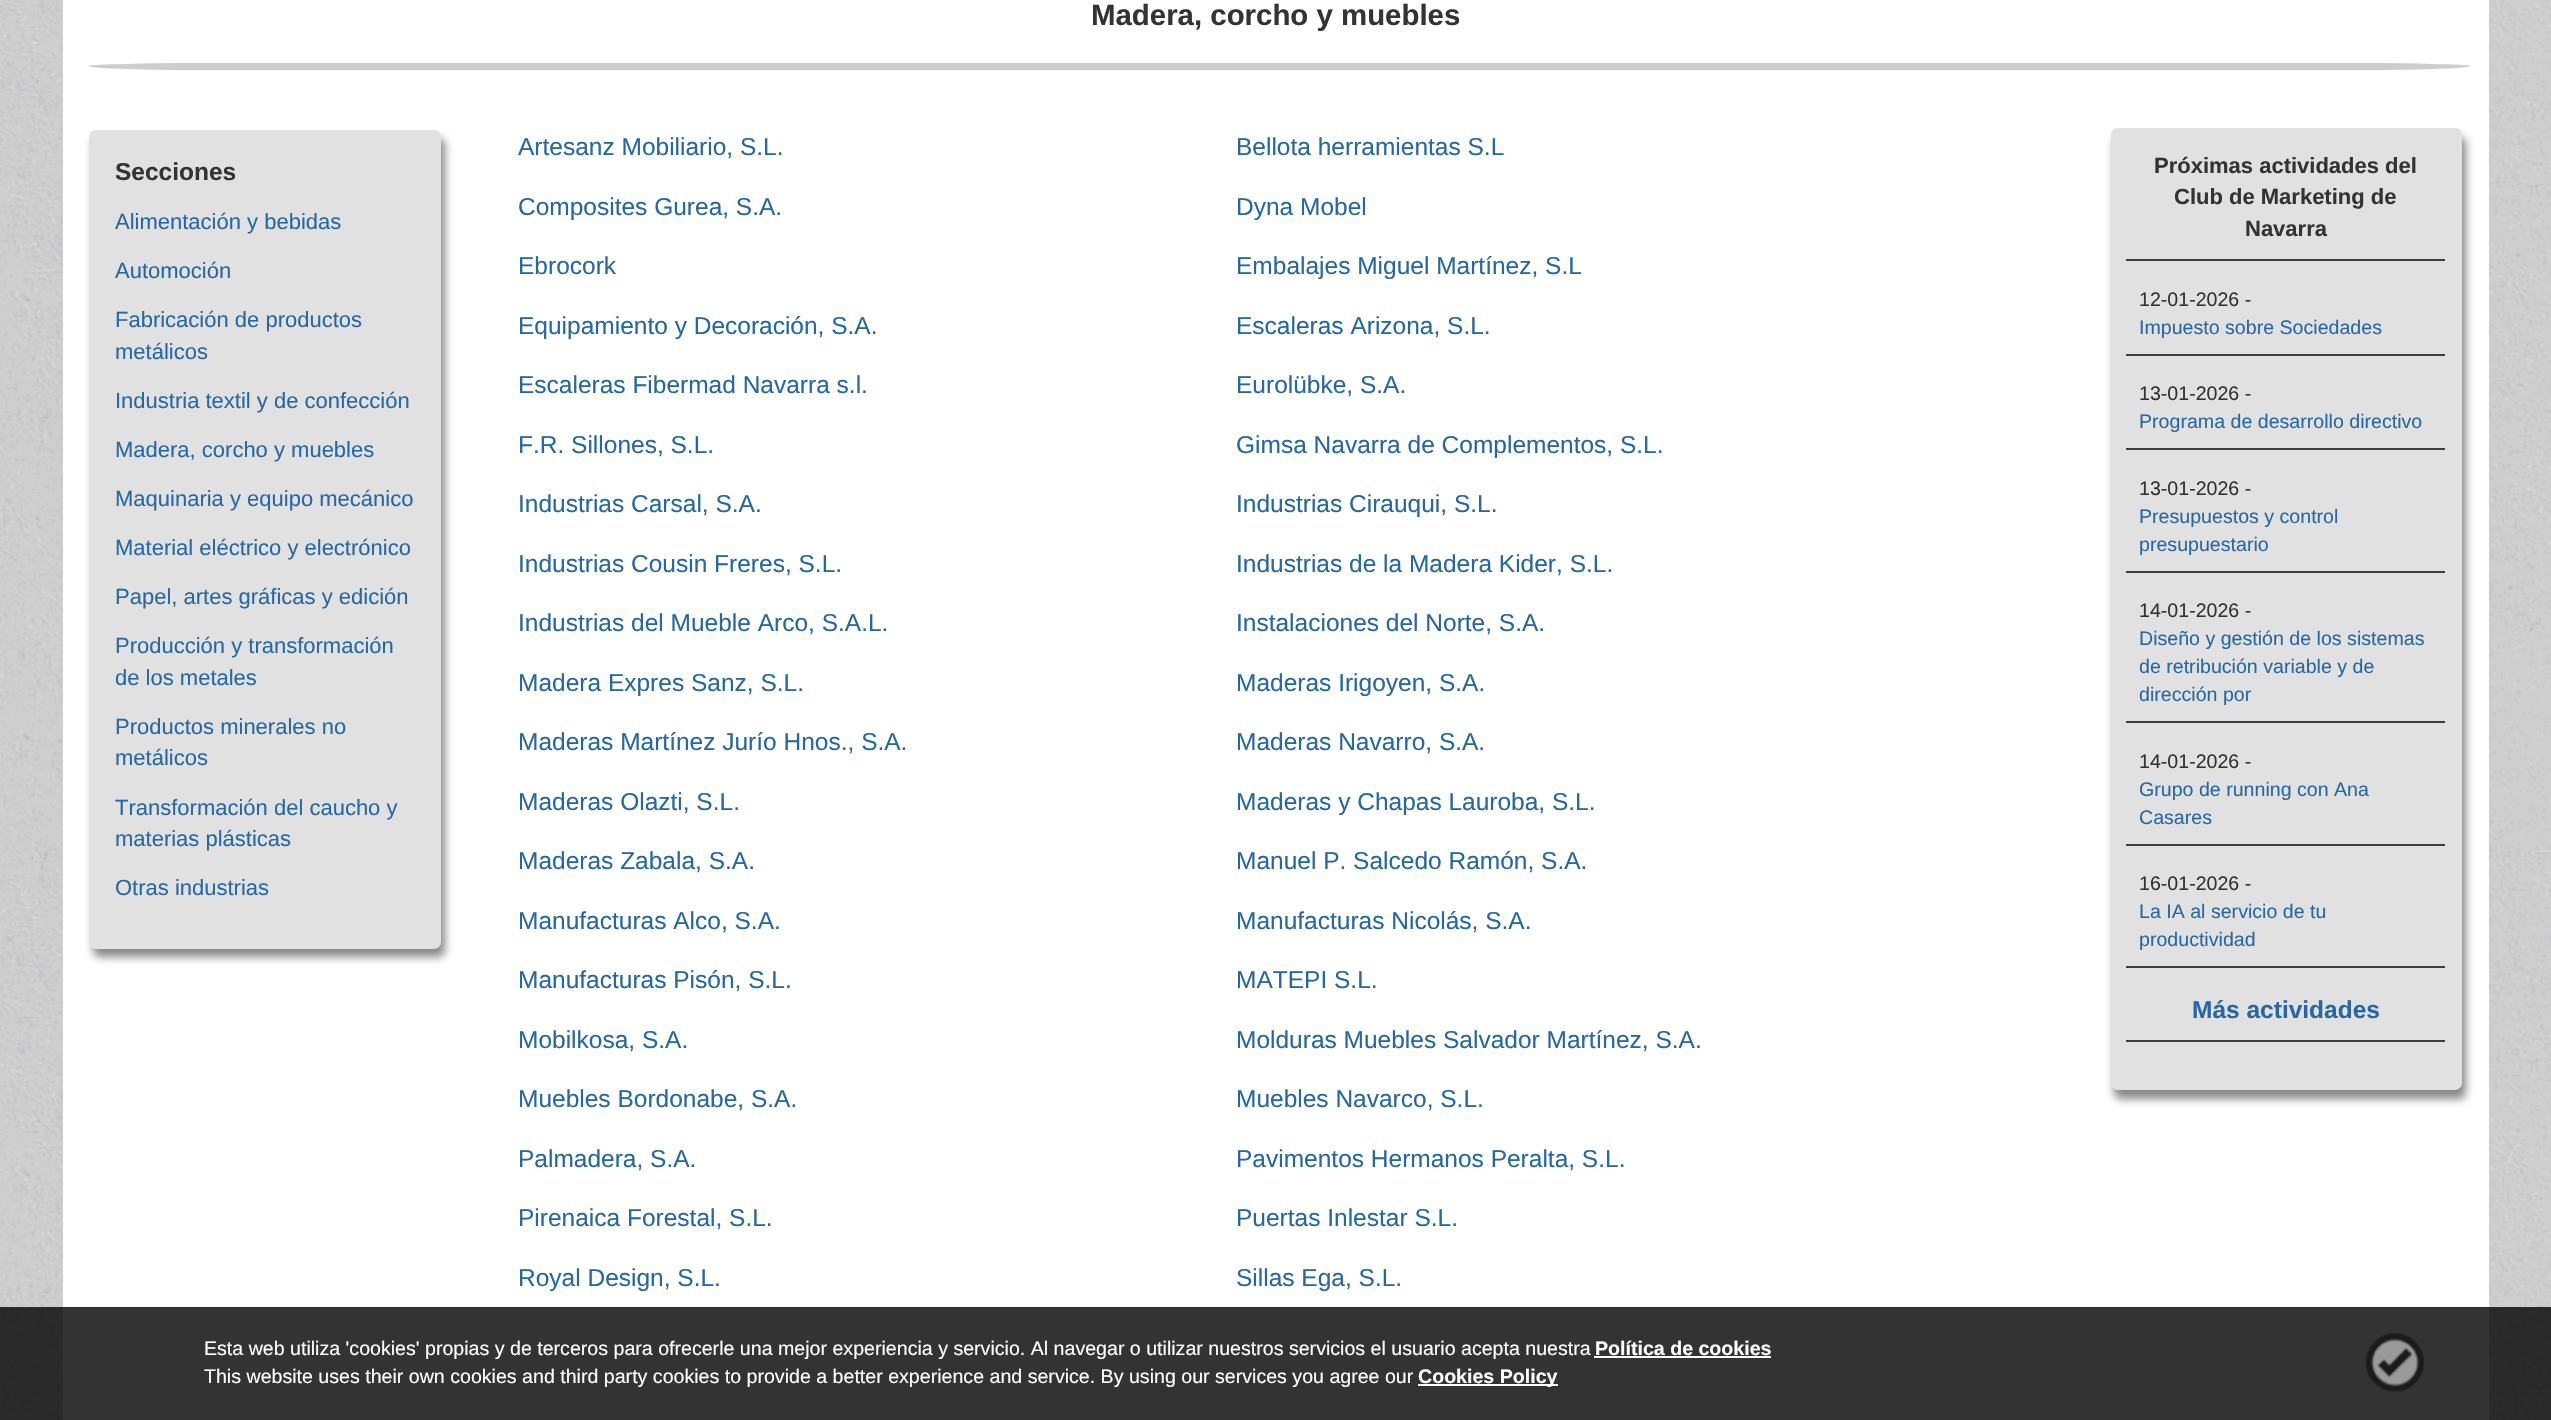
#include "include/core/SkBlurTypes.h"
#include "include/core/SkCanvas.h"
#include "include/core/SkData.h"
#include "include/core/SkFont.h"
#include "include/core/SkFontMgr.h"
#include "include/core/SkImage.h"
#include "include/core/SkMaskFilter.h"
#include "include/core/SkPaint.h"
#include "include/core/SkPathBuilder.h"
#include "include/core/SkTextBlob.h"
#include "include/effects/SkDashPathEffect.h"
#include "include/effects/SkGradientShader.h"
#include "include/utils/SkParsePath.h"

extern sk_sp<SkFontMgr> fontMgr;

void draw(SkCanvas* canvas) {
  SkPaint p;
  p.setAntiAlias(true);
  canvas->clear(SK_ColorWHITE);
  canvas->drawImageRect(SkImages::DeferredFromEncodedData(SkData::MakeFromFileName("images/1.png")), SkRect::MakeLTRB(0, 0, 2551, 1420), SkSamplingOptions());
  p.setColor(SK_ColorWHITE);
  canvas->drawRect(SkRect::MakeLTRB(63, 0, 2489, 1420), p);
  p.setColor(SkColorSetRGB(205, 205, 205));
  canvas->drawPath(SkPathBuilder().moveTo(192, 63).lineTo(2366, 63).cubicTo(2424, 63, 2471, 65, 2471, 66).cubicTo(2471, 68, 2424, 70, 2366, 70).lineTo(192, 70).cubicTo(135, 70, 88, 68, 88, 66).cubicTo(88, 65, 135, 63, 192, 63).close().detach(), p);
  p.setColor(SkColorSetRGB(136, 136, 136));
  p.setMaskFilter(SkMaskFilter::MakeBlur(kNormal_SkBlurStyle, 4.5f));
  canvas->drawRoundRect(SkRect::MakeLTRB(93, 138, 445, 957), 7, 7, p);
  p.setMaskFilter(nullptr);
  p.setColor(SkColorSetRGB(225, 225, 225));
  canvas->drawRoundRect(SkRect::MakeLTRB(89, 130, 441, 949), 7, 7, p);
  p.setColor(SkColorSetRGB(136, 136, 136));
  p.setMaskFilter(SkMaskFilter::MakeBlur(kNormal_SkBlurStyle, 4.5f));
  canvas->drawRoundRect(SkRect::MakeLTRB(2114, 137, 2466, 1099), 7, 7, p);
  p.setMaskFilter(nullptr);
  p.setColor(SkColorSetRGB(225, 225, 225));
  canvas->drawRoundRect(SkRect::MakeLTRB(2111, 128, 2462, 1090), 7, 7, p);
  p.setColor(SkColorSetRGB(61, 61, 61));
  canvas->drawRect(SkRect::MakeLTRB(2126, 259, 2445, 261), p);
  canvas->drawRect(SkRect::MakeLTRB(2126, 354, 2445, 356), p);
  canvas->drawRect(SkRect::MakeLTRB(2126, 448, 2445, 450), p);
  canvas->drawRect(SkRect::MakeLTRB(2126, 571, 2445, 573), p);
  canvas->drawRect(SkRect::MakeLTRB(2126, 721, 2445, 723), p);
  canvas->drawRect(SkRect::MakeLTRB(2126, 844, 2445, 846), p);
  canvas->drawRect(SkRect::MakeLTRB(2126, 966, 2445, 968), p);
  canvas->drawRect(SkRect::MakeLTRB(2126, 1040, 2445, 1042), p);
  p.setColor(SkColorSetARGB(204, 0, 0, 0));
  canvas->drawRect(SkRect::MakeLTRB(0, 1307, 2551, 1420), p);
  p.setColor(SK_ColorWHITE);
  canvas->drawRect(SkRect::MakeLTRB(1594, 1356, 1771, 1358), p);
  canvas->drawImageRect(SkImages::DeferredFromEncodedData(SkData::MakeFromFileName("images/2.png")), SkRect::MakeLTRB(2366, 1333, 2424, 1392), SkSamplingOptions());
  canvas->drawRect(SkRect::MakeLTRB(1418, 1384, 1558, 1386), p);
  SkFont font1(fontMgr->matchFamilyStyle("Liberation Sans", SkFontStyle::Bold()), 29.4f);
  font1.setSubpixel(true);
  p.setColor(SkColorSetRGB(51, 51, 51));
  canvas->drawString("Madera, corcho y muebles", 1091, 25, font1, p);
  SkFont font2(fontMgr->matchFamilyStyle("Liberation Sans", SkFontStyle::Bold()), 24.5f);
  font2.setSubpixel(true);
  canvas->drawString("Secciones", 115, 180, font2, p);
  SkFont font3(fontMgr->matchFamilyStyle("Liberation Sans", SkFontStyle::Normal()), 22);
  font3.setSubpixel(true);
  p.setColor(SkColorSetRGB(38, 104, 161));
  canvas->drawString("Alimentación y bebidas", 115, 229, font3, p);
  canvas->drawString("Automoción", 115, 278, font3, p);
  canvas->drawString("Fabricación de productos", 115, 327, font3, p);
  canvas->drawString("metálicos", 115, 359, font3, p);
  canvas->drawString("Industria textil y de confección", 115, 408, font3, p);
  canvas->drawString("Madera, corcho y muebles", 115, 457, font3, p);
  canvas->drawString("Maquinaria y equipo mecánico", 115, 506, font3, p);
  canvas->drawString("Material eléctrico y electrónico", 115, 555, font3, p);
  canvas->drawString("Papel, artes gráficas y edición", 115, 604, font3, p);
  canvas->drawString("Producción y transformación", 115, 653, font3, p);
  canvas->drawString("de los metales", 115, 685, font3, p);
  canvas->drawString("Productos minerales no", 115, 734, font3, p);
  canvas->drawString("metálicos", 115, 765, font3, p);
  canvas->drawString("Transformación del caucho y", 115, 815, font3, p);
  canvas->drawString("materias plásticas", 115, 846, font3, p);
  canvas->drawString("Otras industrias", 115, 895, font3, p);
  SkFont font4(fontMgr->matchFamilyStyle("Liberation Sans", SkFontStyle::Normal()), 24.5f);
  font4.setSubpixel(true);
  canvas->drawString("Artesanz Mobiliario, S.L.", 518, 155, font4, p);
  canvas->drawString("Bellota herramientas S.L", 1236, 155, font4, p);
  canvas->drawString("Composites Gurea, S.A.", 518, 215, font4, p);
  canvas->drawString("Dyna Mobel", 1236, 215, font4, p);
  canvas->drawString("Ebrocork", 518, 274, font4, p);
  canvas->drawString("Embalajes Miguel Martínez, S.L", 1236, 274, font4, p);
  canvas->drawString("Equipamiento y Decoración, S.A.", 518, 334, font4, p);
  canvas->drawString("Escaleras Arizona, S.L.", 1236, 334, font4, p);
  canvas->drawString("Escaleras Fibermad Navarra s.l.", 518, 393, font4, p);
  canvas->drawString("Eurolübke, S.A.", 1236, 393, font4, p);
  canvas->drawString("F.R. Sillones, S.L.", 518, 453, font4, p);
  canvas->drawString("Gimsa Navarra de Complementos, S.L.", 1236, 453, font4, p);
  canvas->drawString("Industrias Carsal, S.A.", 518, 512, font4, p);
  canvas->drawString("Industrias Cirauqui, S.L.", 1236, 512, font4, p);
  canvas->drawString("Industrias Cousin Freres, S.L.", 518, 572, font4, p);
  canvas->drawString("Industrias de la Madera Kider, S.L.", 1236, 572, font4, p);
  canvas->drawString("Industrias del Mueble Arco, S.A.L.", 518, 631, font4, p);
  canvas->drawString("Instalaciones del Norte, S.A.", 1236, 631, font4, p);
  canvas->drawString("Madera Expres Sanz, S.L.", 518, 691, font4, p);
  canvas->drawString("Maderas Irigoyen, S.A.", 1236, 691, font4, p);
  canvas->drawString("Maderas Martínez Jurío Hnos., S.A.", 518, 750, font4, p);
  canvas->drawString("Maderas Navarro, S.A.", 1236, 750, font4, p);
  canvas->drawString("Maderas Olazti, S.L.", 518, 810, font4, p);
  canvas->drawString("Maderas y Chapas Lauroba, S.L.", 1236, 810, font4, p);
  canvas->drawString("Maderas Zabala, S.A.", 518, 869, font4, p);
  canvas->drawString("Manuel P. Salcedo Ramón, S.A.", 1236, 869, font4, p);
  canvas->drawString("Manufacturas Alco, S.A.", 518, 929, font4, p);
  canvas->drawString("Manufacturas Nicolás, S.A.", 1236, 929, font4, p);
  canvas->drawString("Manufacturas Pisón, S.L.", 518, 988, font4, p);
  canvas->drawString("MATEPI S.L.", 1236, 988, font4, p);
  canvas->drawString("Mobilkosa, S.A.", 518, 1048, font4, p);
  canvas->drawString("Molduras Muebles Salvador Martínez, S.A.", 1236, 1048, font4, p);
  canvas->drawString("Muebles Bordonabe, S.A.", 518, 1107, font4, p);
  canvas->drawString("Muebles Navarco, S.L.", 1236, 1107, font4, p);
  canvas->drawString("Palmadera, S.A.", 518, 1167, font4, p);
  canvas->drawString("Pavimentos Hermanos Peralta, S.L.", 1236, 1167, font4, p);
  canvas->drawString("Pirenaica Forestal, S.L.", 518, 1226, font4, p);
  canvas->drawString("Puertas Inlestar S.L.", 1236, 1226, font4, p);
  canvas->drawString("Royal Design, S.L.", 518, 1286, font4, p);
  canvas->drawString("Sillas Ega, S.L.", 1236, 1286, font4, p);
  SkFont font5(fontMgr->matchFamilyStyle("Liberation Sans", SkFontStyle::Bold()), 22);
  font5.setSubpixel(true);
  p.setColor(SkColorSetRGB(51, 51, 51));
  canvas->drawString("Próximas actividades del", 2154, 173, font5, p);
  canvas->drawString("Club de Marketing de", 2174, 204, font5, p);
  canvas->drawString("Navarra", 2245, 236, font5, p);
  SkFont font6(fontMgr->matchFamilyStyle("Liberation Sans", SkFontStyle::Normal()), 19.6f);
  font6.setSubpixel(true);
  canvas->drawString("12-01-2026 -", 2139, 306, font6, p);
  p.setColor(SkColorSetRGB(38, 104, 161));
  canvas->drawString("Impuesto sobre Sociedades", 2139, 334, font6, p);
  p.setColor(SkColorSetRGB(51, 51, 51));
  canvas->drawString("13-01-2026 -", 2139, 400, font6, p);
  p.setColor(SkColorSetRGB(38, 104, 161));
  canvas->drawString("Programa de desarrollo directivo", 2139, 428, font6, p);
  p.setColor(SkColorSetRGB(51, 51, 51));
  canvas->drawString("13-01-2026 -", 2139, 495, font6, p);
  p.setColor(SkColorSetRGB(38, 104, 161));
  canvas->drawString("Presupuestos y control", 2139, 523, font6, p);
  canvas->drawString("presupuestario", 2139, 551, font6, p);
  p.setColor(SkColorSetRGB(51, 51, 51));
  canvas->drawString("14-01-2026 -", 2139, 617, font6, p);
  p.setColor(SkColorSetRGB(38, 104, 161));
  canvas->drawString("Diseño y gestión de los sistemas", 2139, 645, font6, p);
  canvas->drawString("de retribución variable y de", 2139, 673, font6, p);
  canvas->drawString("dirección por", 2139, 701, font6, p);
  p.setColor(SkColorSetRGB(51, 51, 51));
  canvas->drawString("14-01-2026 -", 2139, 768, font6, p);
  p.setColor(SkColorSetRGB(38, 104, 161));
  canvas->drawString("Grupo de running con Ana", 2139, 796, font6, p);
  canvas->drawString("Casares", 2139, 824, font6, p);
  p.setColor(SkColorSetRGB(51, 51, 51));
  canvas->drawString("16-01-2026 -", 2139, 890, font6, p);
  p.setColor(SkColorSetRGB(38, 104, 161));
  canvas->drawString("La IA al servicio de tu", 2139, 918, font6, p);
  canvas->drawString("productividad", 2139, 946, font6, p);
  canvas->drawString("Más actividades", 2192, 1018, font2, p);
  p.setColor(SK_ColorWHITE);
  canvas->drawString("Esta web utiliza 'cookies' propias y de terceros para ofrecerle una mejor experiencia y servicio. Al navegar o utilizar nuestros servicios el usuario acepta nuestra", 204, 1355, font6, p);
  SkFont font7(fontMgr->matchFamilyStyle("Liberation Sans", SkFontStyle::Bold()), 19.6f);
  font7.setSubpixel(true);
  canvas->drawString("Política de cookies", 1595, 1355, font7, p);
  canvas->drawString("This website uses their own cookies and third party cookies to provide a better experience and service. By using our services you agree our", 204, 1383, font6, p);
  canvas->drawString("Cookies Policy", 1418, 1383, font7, p);
}
